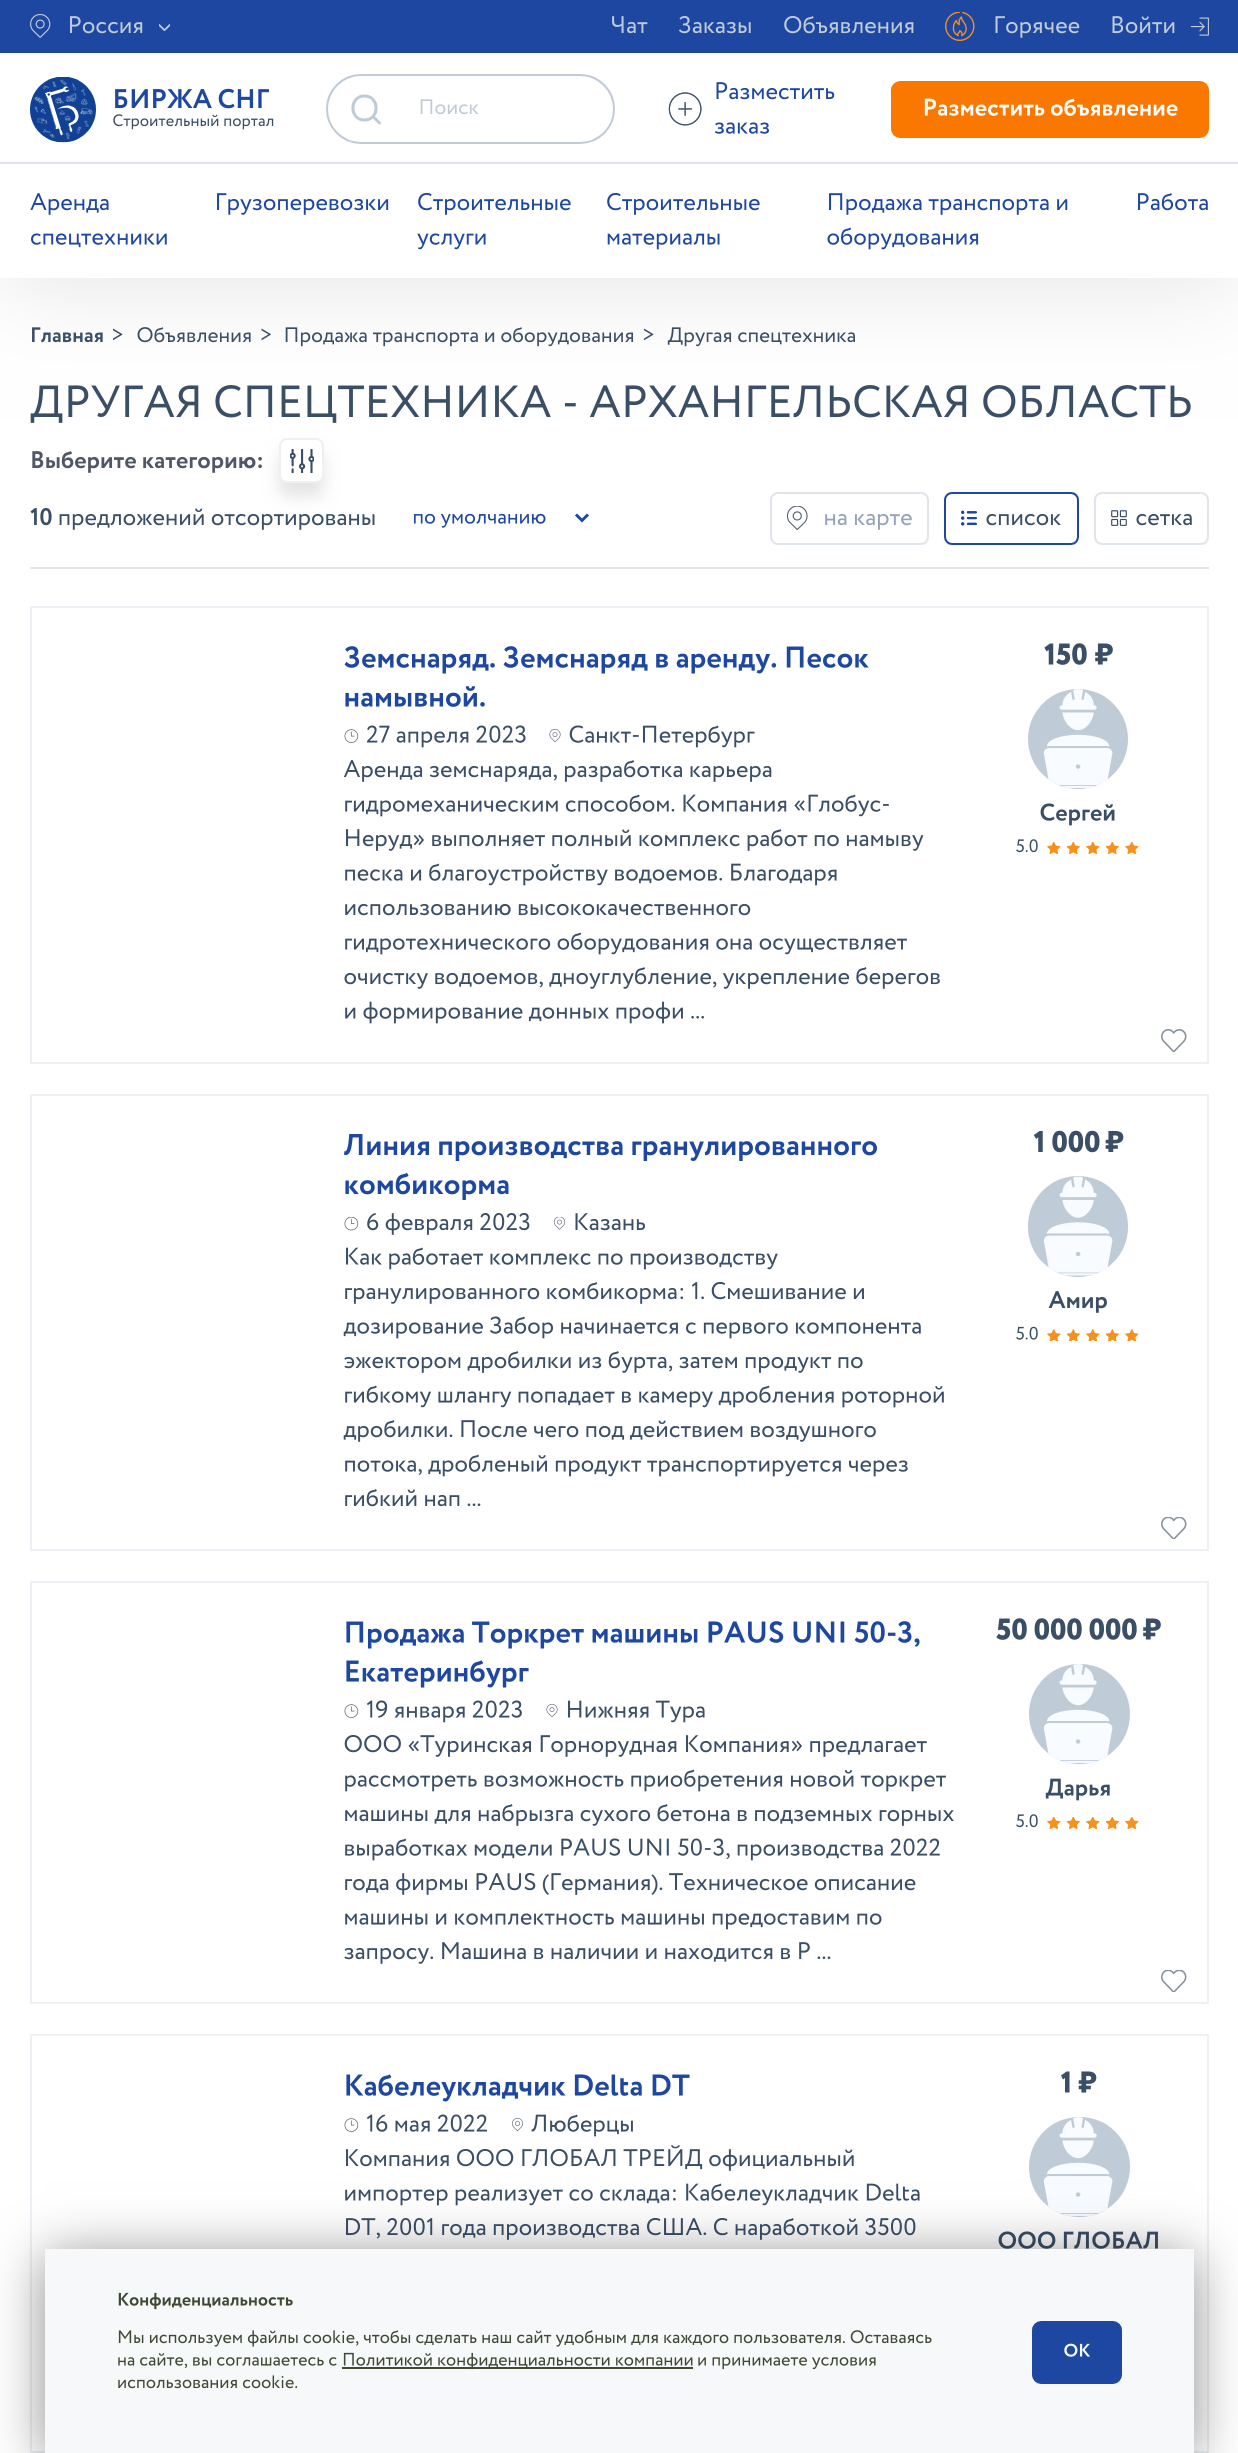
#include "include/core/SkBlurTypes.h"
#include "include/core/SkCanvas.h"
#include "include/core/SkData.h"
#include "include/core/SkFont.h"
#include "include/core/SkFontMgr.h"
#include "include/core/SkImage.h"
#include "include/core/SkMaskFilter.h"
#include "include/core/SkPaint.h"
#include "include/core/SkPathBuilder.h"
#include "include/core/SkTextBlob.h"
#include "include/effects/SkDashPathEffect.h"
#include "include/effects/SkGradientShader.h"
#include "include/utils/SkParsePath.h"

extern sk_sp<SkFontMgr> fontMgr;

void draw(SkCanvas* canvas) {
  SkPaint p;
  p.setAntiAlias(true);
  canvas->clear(SK_ColorWHITE);
  canvas->save();
  canvas->clipPath(SkPathBuilder(SkPathFillType::kEvenOdd).moveTo(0, 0).lineTo(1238, 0).lineTo(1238, 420).lineTo(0, 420).close().moveTo(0, 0).lineTo(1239, 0).lineTo(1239, 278).lineTo(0, 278).close().detach(), true);
  p.setColor(SkColorSetARGB(26, 0, 0, 0));
  p.setMaskFilter(SkMaskFilter::MakeBlur(kNormal_SkBlurStyle, 45));
  canvas->drawRect(SkRect::MakeLTRB(0, 6, 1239, 284), p);
  p.setMaskFilter(nullptr);
  canvas->restore();
  p.setColor(SkColorSetRGB(224, 229, 236));
  canvas->drawRect(SkRect::MakeLTRB(0, 162, 1238, 164), p);
  p.setColor(SkColorSetRGB(30, 71, 161));
  canvas->drawRect(SkRect::MakeLTRB(0, 0, 1238, 53), p);
  canvas->drawImageRect(SkImages::DeferredFromEncodedData(SkData::MakeFromFileName("images/1.png")), SkRect::MakeLTRB(30, 14, 51, 38), SkSamplingOptions());
  canvas->drawImageRect(SkImages::DeferredFromEncodedData(SkData::MakeFromFileName("images/2.png")), SkRect::MakeLTRB(70, 16, 143, 34), SkSamplingOptions());
  canvas->drawImageRect(SkImages::DeferredFromEncodedData(SkData::MakeFromFileName("images/3.png")), SkRect::MakeLTRB(159, 23, 170, 31), SkSamplingOptions());
  canvas->drawImageRect(SkImages::DeferredFromEncodedData(SkData::MakeFromFileName("images/4.png")), SkRect::MakeLTRB(612, 16, 648, 34), SkSamplingOptions());
  canvas->drawImageRect(SkImages::DeferredFromEncodedData(SkData::MakeFromFileName("images/5.png")), SkRect::MakeLTRB(679, 16, 751, 34), SkSamplingOptions());
  canvas->drawImageRect(SkImages::DeferredFromEncodedData(SkData::MakeFromFileName("images/6.png")), SkRect::MakeLTRB(784, 16, 914, 34), SkSamplingOptions());
  canvas->drawImageRect(SkImages::DeferredFromEncodedData(SkData::MakeFromFileName("images/7.png")), SkRect::MakeLTRB(945, 12, 975, 41), SkSamplingOptions());
  canvas->drawImageRect(SkImages::DeferredFromEncodedData(SkData::MakeFromFileName("images/8.png")), SkRect::MakeLTRB(995, 16, 1080, 38), SkSamplingOptions());
  canvas->drawImageRect(SkImages::DeferredFromEncodedData(SkData::MakeFromFileName("images/9.png")), SkRect::MakeLTRB(1112, 16, 1175, 34), SkSamplingOptions());
  canvas->drawImageRect(SkImages::DeferredFromEncodedData(SkData::MakeFromFileName("images/10.png")), SkRect::MakeLTRB(1190, 17, 1209, 36), SkSamplingOptions());
  canvas->drawImageRect(SkImages::DeferredFromEncodedData(SkData::MakeFromFileName("images/11.png")), SkRect::MakeLTRB(30, 77, 96, 143), SkSamplingOptions());
  canvas->drawImageRect(SkImages::DeferredFromEncodedData(SkData::MakeFromFileName("images/12.png")), SkRect::MakeLTRB(115, 89, 212, 109), SkSamplingOptions());
  canvas->drawImageRect(SkImages::DeferredFromEncodedData(SkData::MakeFromFileName("images/13.png")), SkRect::MakeLTRB(218, 88, 269, 109), SkSamplingOptions());
  canvas->drawImageRect(SkImages::DeferredFromEncodedData(SkData::MakeFromFileName("images/14.png")), SkRect::MakeLTRB(113, 114, 274, 130), SkSamplingOptions());
  p.setStyle(SkPaint::kStroke_Style);
  p.setStrokeWidth(2);
  p.setColor(SkColorSetRGB(192, 203, 216));
  canvas->drawRoundRect(SkRect::MakeLTRB(327, 75, 614, 143), 34, 34, p);
  p.setStrokeWidth(3);
  p.setStrokeCap(SkPaint::kRound_Cap);
  p.setStrokeJoin(SkPaint::kRound_Join);
  canvas->drawPath(SkPathBuilder().moveTo(364.5f, 120).cubicTo(380, 120, 380, 96, 364.5f, 96).cubicTo(349, 96, 349, 120, 364.5f, 120).close().moveTo(379.5f, 123).lineTo(373, 116.5f).detach(), p);
  canvas->drawImageRect(SkImages::DeferredFromEncodedData(SkData::MakeFromFileName("images/15.png")), SkRect::MakeLTRB(420, 99, 479, 115), SkSamplingOptions());
  canvas->drawImageRect(SkImages::DeferredFromEncodedData(SkData::MakeFromFileName("images/16.png")), SkRect::MakeLTRB(668, 92, 702, 126), SkSamplingOptions());
  canvas->drawImageRect(SkImages::DeferredFromEncodedData(SkData::MakeFromFileName("images/17.png")), SkRect::MakeLTRB(716, 82, 835, 100), SkSamplingOptions());
  canvas->drawImageRect(SkImages::DeferredFromEncodedData(SkData::MakeFromFileName("images/18.png")), SkRect::MakeLTRB(714, 122, 769, 134), SkSamplingOptions());
  p.setStyle(SkPaint::kFill_Style);
  p.setColor(SkColorSetRGB(251, 120, 0));
  canvas->drawRoundRect(SkRect::MakeLTRB(892, 82, 1208, 137), 8, 8, p);
  p.setStyle(SkPaint::kStroke_Style);
  p.setStrokeWidth(2);
  p.setStrokeCap(SkPaint::kButt_Cap);
  p.setStrokeJoin(SkPaint::kMiter_Join);
  canvas->drawRoundRect(SkRect::MakeLTRB(892, 82, 1208, 137), 8, 8, p);
  canvas->drawImageRect(SkImages::DeferredFromEncodedData(SkData::MakeFromFileName("images/19.png")), SkRect::MakeLTRB(924, 98, 1178, 116), SkSamplingOptions());
  canvas->drawImageRect(SkImages::DeferredFromEncodedData(SkData::MakeFromFileName("images/20.png")), SkRect::MakeLTRB(30, 193, 109, 215), SkSamplingOptions());
  canvas->drawImageRect(SkImages::DeferredFromEncodedData(SkData::MakeFromFileName("images/21.png")), SkRect::MakeLTRB(31, 233, 167, 248), SkSamplingOptions());
  canvas->drawImageRect(SkImages::DeferredFromEncodedData(SkData::MakeFromFileName("images/22.png")), SkRect::MakeLTRB(217, 193, 389, 215), SkSamplingOptions());
  canvas->drawImageRect(SkImages::DeferredFromEncodedData(SkData::MakeFromFileName("images/23.png")), SkRect::MakeLTRB(418, 193, 571, 215), SkSamplingOptions());
  canvas->drawImageRect(SkImages::DeferredFromEncodedData(SkData::MakeFromFileName("images/24.png")), SkRect::MakeLTRB(417, 233, 486, 250), SkSamplingOptions());
  canvas->drawImageRect(SkImages::DeferredFromEncodedData(SkData::MakeFromFileName("images/23.png")), SkRect::MakeLTRB(607, 193, 760, 215), SkSamplingOptions());
  canvas->drawImageRect(SkImages::DeferredFromEncodedData(SkData::MakeFromFileName("images/25.png")), SkRect::MakeLTRB(607, 233, 720, 250), SkSamplingOptions());
  canvas->drawImageRect(SkImages::DeferredFromEncodedData(SkData::MakeFromFileName("images/26.png")), SkRect::MakeLTRB(829, 193, 1068, 215), SkSamplingOptions());
  canvas->drawImageRect(SkImages::DeferredFromEncodedData(SkData::MakeFromFileName("images/27.png")), SkRect::MakeLTRB(827, 227, 979, 250), SkSamplingOptions());
  canvas->drawImageRect(SkImages::DeferredFromEncodedData(SkData::MakeFromFileName("images/28.png")), SkRect::MakeLTRB(1138, 193, 1208, 211), SkSamplingOptions());
  canvas->drawImageRect(SkImages::DeferredFromEncodedData(SkData::MakeFromFileName("images/29.png")), SkRect::MakeLTRB(32, 327, 103, 343), SkSamplingOptions());
  canvas->drawImageRect(SkImages::DeferredFromEncodedData(SkData::MakeFromFileName("images/30.png")), SkRect::MakeLTRB(113, 328, 123, 341), SkSamplingOptions());
  canvas->drawImageRect(SkImages::DeferredFromEncodedData(SkData::MakeFromFileName("images/31.png")), SkRect::MakeLTRB(137, 327, 251, 343), SkSamplingOptions());
  canvas->drawImageRect(SkImages::DeferredFromEncodedData(SkData::MakeFromFileName("images/32.png")), SkRect::MakeLTRB(261, 328, 271, 341), SkSamplingOptions());
  canvas->drawImageRect(SkImages::DeferredFromEncodedData(SkData::MakeFromFileName("images/33.png")), SkRect::MakeLTRB(285, 327, 634, 347), SkSamplingOptions());
  canvas->drawImageRect(SkImages::DeferredFromEncodedData(SkData::MakeFromFileName("images/34.png")), SkRect::MakeLTRB(644, 328, 654, 341), SkSamplingOptions());
  canvas->drawImageRect(SkImages::DeferredFromEncodedData(SkData::MakeFromFileName("images/35.png")), SkRect::MakeLTRB(667, 327, 855, 347), SkSamplingOptions());
  canvas->drawImageRect(SkImages::DeferredFromEncodedData(SkData::MakeFromFileName("images/36.png")), SkRect::MakeLTRB(30, 385, 1191, 423), SkSamplingOptions());
  canvas->drawImageRect(SkImages::DeferredFromEncodedData(SkData::MakeFromFileName("images/37.png")), SkRect::MakeLTRB(32, 451, 262, 473), SkSamplingOptions());
  canvas->drawImageRect(SkImages::DeferredFromEncodedData(SkData::MakeFromFileName("images/40.png")), SkRect::MakeLTRB(59, 508, 375, 530), SkSamplingOptions());
  p.setStyle(SkPaint::kFill_Style);
  p.setColor(SkColorSetARGB(26, 0, 0, 0));
  p.setMaskFilter(SkMaskFilter::MakeBlur(kNormal_SkBlurStyle, 7.5f));
  canvas->drawRoundRect(SkRect::MakeLTRB(279, 452, 324, 497), 8, 8, p);
  p.setMaskFilter(nullptr);
  p.setColor(SK_ColorWHITE);
  canvas->drawRoundRect(SkRect::MakeLTRB(279, 438, 324, 483), 8, 8, p);
  canvas->drawImageRect(SkImages::DeferredFromEncodedData(SkData::MakeFromFileName("images/38.png")), SkRect::MakeLTRB(290, 449, 314, 473), SkSamplingOptions());
  p.setStyle(SkPaint::kStroke_Style);
  p.setColor(SkColorSetARGB(71, 192, 203, 216));
  canvas->drawRoundRect(SkRect::MakeLTRB(280, 439, 323, 482), 7, 7, p);
  p.setStyle(SkPaint::kFill_Style);
  p.setColor(SkColorSetRGB(224, 229, 236));
  canvas->drawRect(SkRect::MakeLTRB(30, 567, 1209, 569), p);
  canvas->drawImageRect(SkImages::DeferredFromEncodedData(SkData::MakeFromFileName("images/39.png")), SkRect::MakeLTRB(30, 508, 52, 526), SkSamplingOptions());
  p.setStyle(SkPaint::kStroke_Style);
  p.setStrokeWidth(3);
  p.setColor(SkColorSetRGB(30, 71, 161));
  canvas->drawPath(SkPathBuilder().moveTo(576, 514.5f).lineTo(582, 520.5f).lineTo(588, 514.5f).detach(), p);
  canvas->drawImageRect(SkImages::DeferredFromEncodedData(SkData::MakeFromFileName("images/41.png")), SkRect::MakeLTRB(414, 513, 546, 528), SkSamplingOptions());
  p.setStrokeWidth(2);
  p.setColor(SkColorSetRGB(224, 229, 236));
  canvas->drawRoundRect(SkRect::MakeLTRB(771, 493, 928, 544), 7, 7, p);
  canvas->drawImageRect(SkImages::DeferredFromEncodedData(SkData::MakeFromFileName("images/42.png")), SkRect::MakeLTRB(786, 506, 808, 530), SkSamplingOptions());
  canvas->drawImageRect(SkImages::DeferredFromEncodedData(SkData::MakeFromFileName("images/43.png")), SkRect::MakeLTRB(825, 514, 912, 530), SkSamplingOptions());
  p.setColor(SkColorSetRGB(30, 71, 161));
  canvas->drawRoundRect(SkRect::MakeLTRB(945, 493, 1078, 544), 7, 7, p);
  canvas->drawImageRect(SkImages::DeferredFromEncodedData(SkData::MakeFromFileName("images/44.png")), SkRect::MakeLTRB(961, 510, 977, 526), SkSamplingOptions());
  canvas->drawImageRect(SkImages::DeferredFromEncodedData(SkData::MakeFromFileName("images/45.png")), SkRect::MakeLTRB(986, 514, 1061, 526), SkSamplingOptions());
  p.setColor(SkColorSetRGB(224, 229, 236));
  canvas->drawRoundRect(SkRect::MakeLTRB(1095, 493, 1208, 544), 7, 7, p);
  canvas->drawImageRect(SkImages::DeferredFromEncodedData(SkData::MakeFromFileName("images/46.png")), SkRect::MakeLTRB(1111, 510, 1127, 526), SkSamplingOptions());
  canvas->drawImageRect(SkImages::DeferredFromEncodedData(SkData::MakeFromFileName("images/47.png")), SkRect::MakeLTRB(1136, 514, 1192, 526), SkSamplingOptions());
  p.setColor(SkColorSetRGB(237, 240, 244));
  canvas->drawRect(SkRect::MakeLTRB(31, 607, 1208, 1063), p);
  canvas->drawImageRect(SkImages::DeferredFromEncodedData(SkData::MakeFromFileName("images/48.png")), SkRect::MakeLTRB(344, 646, 869, 674), SkSamplingOptions());
  canvas->drawImageRect(SkImages::DeferredFromEncodedData(SkData::MakeFromFileName("images/49.png")), SkRect::MakeLTRB(345, 686, 485, 707), SkSamplingOptions());
  canvas->drawImageRect(SkImages::DeferredFromEncodedData(SkData::MakeFromFileName("images/50.png")), SkRect::MakeLTRB(344, 729, 359, 743), SkSamplingOptions());
  canvas->drawImageRect(SkImages::DeferredFromEncodedData(SkData::MakeFromFileName("images/51.png")), SkRect::MakeLTRB(367, 725, 526, 748), SkSamplingOptions());
  canvas->drawImageRect(SkImages::DeferredFromEncodedData(SkData::MakeFromFileName("images/52.png")), SkRect::MakeLTRB(549, 729, 561, 742), SkSamplingOptions());
  canvas->drawImageRect(SkImages::DeferredFromEncodedData(SkData::MakeFromFileName("images/53.png")), SkRect::MakeLTRB(569, 725, 755, 748), SkSamplingOptions());
  canvas->drawImageRect(SkImages::DeferredFromEncodedData(SkData::MakeFromFileName("images/54.png")), SkRect::MakeLTRB(343, 760, 772, 782), SkSamplingOptions());
  canvas->drawImageRect(SkImages::DeferredFromEncodedData(SkData::MakeFromFileName("images/55.png")), SkRect::MakeLTRB(345, 794, 675, 817), SkSamplingOptions());
  canvas->drawImageRect(SkImages::DeferredFromEncodedData(SkData::MakeFromFileName("images/56.png")), SkRect::MakeLTRB(683, 794, 889, 817), SkSamplingOptions());
  canvas->drawImageRect(SkImages::DeferredFromEncodedData(SkData::MakeFromFileName("images/57.png")), SkRect::MakeLTRB(346, 829, 924, 851), SkSamplingOptions());
  canvas->drawImageRect(SkImages::DeferredFromEncodedData(SkData::MakeFromFileName("images/58.png")), SkRect::MakeLTRB(345, 863, 837, 886), SkSamplingOptions());
  canvas->drawImageRect(SkImages::DeferredFromEncodedData(SkData::MakeFromFileName("images/59.png")), SkRect::MakeLTRB(345, 904, 751, 916), SkSamplingOptions());
  canvas->drawImageRect(SkImages::DeferredFromEncodedData(SkData::MakeFromFileName("images/60.png")), SkRect::MakeLTRB(345, 932, 907, 955), SkSamplingOptions());
  canvas->drawImageRect(SkImages::DeferredFromEncodedData(SkData::MakeFromFileName("images/61.png")), SkRect::MakeLTRB(344, 967, 940, 989), SkSamplingOptions());
  canvas->drawImageRect(SkImages::DeferredFromEncodedData(SkData::MakeFromFileName("images/62.png")), SkRect::MakeLTRB(345, 1001, 704, 1024), SkSamplingOptions());
  canvas->drawImageRect(SkImages::DeferredFromEncodedData(SkData::MakeFromFileName("images/63.png")), SkRect::MakeLTRB(1044, 643, 1087, 665), SkSamplingOptions());
  canvas->drawImageRect(SkImages::DeferredFromEncodedData(SkData::MakeFromFileName("images/64.png")), SkRect::MakeLTRB(1095, 643, 1113, 665), SkSamplingOptions());
  p.setStyle(SkPaint::kFill_Style);
  p.setColor(SkColorSetRGB(192, 203, 216));
  canvas->drawCircle(1078, 739, 50, p);
  canvas->drawImageRect(SkImages::DeferredFromEncodedData(SkData::MakeFromFileName("images/65.png")), SkRect::MakeLTRB(1043, 689, 1113, 788), SkSamplingOptions());
  canvas->drawImageRect(SkImages::DeferredFromEncodedData(SkData::MakeFromFileName("images/66.png")), SkRect::MakeLTRB(1040, 803, 1115, 826), SkSamplingOptions());
  canvas->drawImageRect(SkImages::DeferredFromEncodedData(SkData::MakeFromFileName("images/67.png")), SkRect::MakeLTRB(1016, 839, 1038, 853), SkSamplingOptions());
  canvas->drawImageRect(SkImages::DeferredFromEncodedData(SkData::MakeFromFileName("images/68.png")), SkRect::MakeLTRB(1047, 842, 1061, 854), SkSamplingOptions());
  canvas->drawImageRect(SkImages::DeferredFromEncodedData(SkData::MakeFromFileName("images/69.png")), SkRect::MakeLTRB(1067, 842, 1080, 854), SkSamplingOptions());
  canvas->drawImageRect(SkImages::DeferredFromEncodedData(SkData::MakeFromFileName("images/68.png")), SkRect::MakeLTRB(1086, 842, 1100, 854), SkSamplingOptions());
  canvas->drawImageRect(SkImages::DeferredFromEncodedData(SkData::MakeFromFileName("images/69.png")), SkRect::MakeLTRB(1106, 842, 1119, 854), SkSamplingOptions());
  canvas->drawImageRect(SkImages::DeferredFromEncodedData(SkData::MakeFromFileName("images/68.png")), SkRect::MakeLTRB(1125, 842, 1139, 854), SkSamplingOptions());
  canvas->drawImageRect(SkImages::DeferredFromEncodedData(SkData::MakeFromFileName("images/70.png")), SkRect::MakeLTRB(1161, 1029, 1187, 1052), SkSamplingOptions());
  p.setStyle(SkPaint::kStroke_Style);
  p.setColor(SkColorSetRGB(237, 240, 244));
  canvas->drawRect(SkRect::MakeLTRB(31, 1095, 1208, 1550), p);
  canvas->drawImageRect(SkImages::DeferredFromEncodedData(SkData::MakeFromFileName("images/71.png")), SkRect::MakeLTRB(344, 1134, 877, 1161), SkSamplingOptions());
  canvas->drawImageRect(SkImages::DeferredFromEncodedData(SkData::MakeFromFileName("images/72.png")), SkRect::MakeLTRB(345, 1172, 509, 1200), SkSamplingOptions());
  canvas->drawImageRect(SkImages::DeferredFromEncodedData(SkData::MakeFromFileName("images/73.png")), SkRect::MakeLTRB(344, 1217, 359, 1231), SkSamplingOptions());
  canvas->drawImageRect(SkImages::DeferredFromEncodedData(SkData::MakeFromFileName("images/74.png")), SkRect::MakeLTRB(367, 1213, 530, 1235), SkSamplingOptions());
  canvas->drawImageRect(SkImages::DeferredFromEncodedData(SkData::MakeFromFileName("images/75.png")), SkRect::MakeLTRB(554, 1217, 565, 1230), SkSamplingOptions());
  canvas->drawImageRect(SkImages::DeferredFromEncodedData(SkData::MakeFromFileName("images/76.png")), SkRect::MakeLTRB(575, 1213, 645, 1231), SkSamplingOptions());
  canvas->drawImageRect(SkImages::DeferredFromEncodedData(SkData::MakeFromFileName("images/77.png")), SkRect::MakeLTRB(346, 1247, 778, 1270), SkSamplingOptions());
  canvas->drawImageRect(SkImages::DeferredFromEncodedData(SkData::MakeFromFileName("images/78.png")), SkRect::MakeLTRB(345, 1282, 864, 1304), SkSamplingOptions());
  canvas->drawImageRect(SkImages::DeferredFromEncodedData(SkData::MakeFromFileName("images/79.png")), SkRect::MakeLTRB(343, 1322, 483, 1339), SkSamplingOptions());
  canvas->drawImageRect(SkImages::DeferredFromEncodedData(SkData::MakeFromFileName("images/80.png")), SkRect::MakeLTRB(490, 1316, 921, 1339), SkSamplingOptions());
  canvas->drawImageRect(SkImages::DeferredFromEncodedData(SkData::MakeFromFileName("images/81.png")), SkRect::MakeLTRB(344, 1351, 863, 1373), SkSamplingOptions());
  canvas->drawImageRect(SkImages::DeferredFromEncodedData(SkData::MakeFromFileName("images/82.png")), SkRect::MakeLTRB(345, 1385, 944, 1408), SkSamplingOptions());
  canvas->drawImageRect(SkImages::DeferredFromEncodedData(SkData::MakeFromFileName("images/83.png")), SkRect::MakeLTRB(343, 1420, 876, 1442), SkSamplingOptions());
  canvas->drawImageRect(SkImages::DeferredFromEncodedData(SkData::MakeFromFileName("images/84.png")), SkRect::MakeLTRB(345, 1454, 908, 1477), SkSamplingOptions());
  canvas->drawImageRect(SkImages::DeferredFromEncodedData(SkData::MakeFromFileName("images/85.png")), SkRect::MakeLTRB(345, 1489, 481, 1507), SkSamplingOptions());
  canvas->drawImageRect(SkImages::DeferredFromEncodedData(SkData::MakeFromFileName("images/86.png")), SkRect::MakeLTRB(1033, 1130, 1100, 1153), SkSamplingOptions());
  canvas->drawImageRect(SkImages::DeferredFromEncodedData(SkData::MakeFromFileName("images/87.png")), SkRect::MakeLTRB(1105, 1130, 1124, 1152), SkSamplingOptions());
  p.setStyle(SkPaint::kFill_Style);
  p.setColor(SkColorSetRGB(192, 203, 216));
  canvas->drawRoundRect(SkRect::MakeLTRB(1028, 1176, 1128, 1277), 50, 50, p);
  canvas->drawImageRect(SkImages::DeferredFromEncodedData(SkData::MakeFromFileName("images/88.png")), SkRect::MakeLTRB(1043, 1176, 1113, 1276), SkSamplingOptions());
  canvas->drawImageRect(SkImages::DeferredFromEncodedData(SkData::MakeFromFileName("images/89.png")), SkRect::MakeLTRB(1048, 1291, 1107, 1313), SkSamplingOptions());
  canvas->drawImageRect(SkImages::DeferredFromEncodedData(SkData::MakeFromFileName("images/90.png")), SkRect::MakeLTRB(1016, 1326, 1038, 1340), SkSamplingOptions());
  canvas->drawImageRect(SkImages::DeferredFromEncodedData(SkData::MakeFromFileName("images/91.png")), SkRect::MakeLTRB(1047, 1329, 1061, 1341), SkSamplingOptions());
  canvas->drawImageRect(SkImages::DeferredFromEncodedData(SkData::MakeFromFileName("images/92.png")), SkRect::MakeLTRB(1067, 1329, 1080, 1341), SkSamplingOptions());
  canvas->drawImageRect(SkImages::DeferredFromEncodedData(SkData::MakeFromFileName("images/91.png")), SkRect::MakeLTRB(1086, 1329, 1100, 1341), SkSamplingOptions());
  canvas->drawImageRect(SkImages::DeferredFromEncodedData(SkData::MakeFromFileName("images/92.png")), SkRect::MakeLTRB(1106, 1329, 1119, 1341), SkSamplingOptions());
  canvas->drawImageRect(SkImages::DeferredFromEncodedData(SkData::MakeFromFileName("images/91.png")), SkRect::MakeLTRB(1125, 1329, 1139, 1341), SkSamplingOptions());
  canvas->drawImageRect(SkImages::DeferredFromEncodedData(SkData::MakeFromFileName("images/93.png")), SkRect::MakeLTRB(1161, 1517, 1187, 1539), SkSamplingOptions());
  p.setStyle(SkPaint::kStroke_Style);
  p.setColor(SkColorSetRGB(237, 240, 244));
  canvas->drawRect(SkRect::MakeLTRB(31, 1582, 1208, 2003), p);
  canvas->drawImageRect(SkImages::DeferredFromEncodedData(SkData::MakeFromFileName("images/94.png")), SkRect::MakeLTRB(346, 1621, 920, 1649), SkSamplingOptions());
  canvas->drawImageRect(SkImages::DeferredFromEncodedData(SkData::MakeFromFileName("images/95.png")), SkRect::MakeLTRB(346, 1660, 529, 1688), SkSamplingOptions());
  canvas->drawImageRect(SkImages::DeferredFromEncodedData(SkData::MakeFromFileName("images/50.png")), SkRect::MakeLTRB(344, 1704, 359, 1718), SkSamplingOptions());
  canvas->drawImageRect(SkImages::DeferredFromEncodedData(SkData::MakeFromFileName("images/96.png")), SkRect::MakeLTRB(366, 1700, 522, 1723), SkSamplingOptions());
  canvas->drawImageRect(SkImages::DeferredFromEncodedData(SkData::MakeFromFileName("images/52.png")), SkRect::MakeLTRB(546, 1704, 558, 1717), SkSamplingOptions());
  canvas->drawImageRect(SkImages::DeferredFromEncodedData(SkData::MakeFromFileName("images/97.png")), SkRect::MakeLTRB(568, 1700, 705, 1723), SkSamplingOptions());
  canvas->drawImageRect(SkImages::DeferredFromEncodedData(SkData::MakeFromFileName("images/98.png")), SkRect::MakeLTRB(344, 1735, 927, 1757), SkSamplingOptions());
  canvas->drawImageRect(SkImages::DeferredFromEncodedData(SkData::MakeFromFileName("images/99.png")), SkRect::MakeLTRB(345, 1769, 946, 1792), SkSamplingOptions());
  canvas->drawImageRect(SkImages::DeferredFromEncodedData(SkData::MakeFromFileName("images/100.png")), SkRect::MakeLTRB(345, 1804, 954, 1826), SkSamplingOptions());
  canvas->drawImageRect(SkImages::DeferredFromEncodedData(SkData::MakeFromFileName("images/101.png")), SkRect::MakeLTRB(345, 1838, 940, 1861), SkSamplingOptions());
  canvas->drawImageRect(SkImages::DeferredFromEncodedData(SkData::MakeFromFileName("images/102.png")), SkRect::MakeLTRB(345, 1873, 916, 1895), SkSamplingOptions());
  canvas->drawImageRect(SkImages::DeferredFromEncodedData(SkData::MakeFromFileName("images/103.png")), SkRect::MakeLTRB(345, 1913, 882, 1930), SkSamplingOptions());
  canvas->drawImageRect(SkImages::DeferredFromEncodedData(SkData::MakeFromFileName("images/104.png")), SkRect::MakeLTRB(344, 1942, 831, 1964), SkSamplingOptions());
  canvas->drawImageRect(SkImages::DeferredFromEncodedData(SkData::MakeFromFileName("images/105.png")), SkRect::MakeLTRB(996, 1618, 1137, 1640), SkSamplingOptions());
  canvas->drawImageRect(SkImages::DeferredFromEncodedData(SkData::MakeFromFileName("images/64.png")), SkRect::MakeLTRB(1143, 1618, 1161, 1640), SkSamplingOptions());
  p.setStyle(SkPaint::kFill_Style);
  p.setColor(SkColorSetRGB(192, 203, 216));
  canvas->drawRoundRect(SkRect::MakeLTRB(1029, 1664, 1130, 1764), 50, 50, p);
  canvas->drawImageRect(SkImages::DeferredFromEncodedData(SkData::MakeFromFileName("images/106.png")), SkRect::MakeLTRB(1043, 1664, 1113, 1763), SkSamplingOptions());
  canvas->drawImageRect(SkImages::DeferredFromEncodedData(SkData::MakeFromFileName("images/107.png")), SkRect::MakeLTRB(1045, 1778, 1110, 1801), SkSamplingOptions());
  canvas->drawImageRect(SkImages::DeferredFromEncodedData(SkData::MakeFromFileName("images/67.png")), SkRect::MakeLTRB(1016, 1814, 1038, 1828), SkSamplingOptions());
  canvas->drawImageRect(SkImages::DeferredFromEncodedData(SkData::MakeFromFileName("images/68.png")), SkRect::MakeLTRB(1047, 1817, 1061, 1829), SkSamplingOptions());
  canvas->drawImageRect(SkImages::DeferredFromEncodedData(SkData::MakeFromFileName("images/69.png")), SkRect::MakeLTRB(1067, 1817, 1080, 1829), SkSamplingOptions());
  canvas->drawImageRect(SkImages::DeferredFromEncodedData(SkData::MakeFromFileName("images/68.png")), SkRect::MakeLTRB(1086, 1817, 1100, 1829), SkSamplingOptions());
  canvas->drawImageRect(SkImages::DeferredFromEncodedData(SkData::MakeFromFileName("images/69.png")), SkRect::MakeLTRB(1106, 1817, 1119, 1829), SkSamplingOptions());
  canvas->drawImageRect(SkImages::DeferredFromEncodedData(SkData::MakeFromFileName("images/68.png")), SkRect::MakeLTRB(1125, 1817, 1139, 1829), SkSamplingOptions());
  canvas->drawImageRect(SkImages::DeferredFromEncodedData(SkData::MakeFromFileName("images/93.png")), SkRect::MakeLTRB(1161, 1970, 1187, 1992), SkSamplingOptions());
  p.setStyle(SkPaint::kStroke_Style);
  p.setColor(SkColorSetRGB(237, 240, 244));
  canvas->drawRect(SkRect::MakeLTRB(31, 2035, 1208, 2452), p);
  canvas->drawImageRect(SkImages::DeferredFromEncodedData(SkData::MakeFromFileName("images/108.png")), SkRect::MakeLTRB(346, 2074, 690, 2102), SkSamplingOptions());
  canvas->drawImageRect(SkImages::DeferredFromEncodedData(SkData::MakeFromFileName("images/50.png")), SkRect::MakeLTRB(344, 2118, 359, 2132), SkSamplingOptions());
  canvas->drawImageRect(SkImages::DeferredFromEncodedData(SkData::MakeFromFileName("images/109.png")), SkRect::MakeLTRB(366, 2114, 487, 2132), SkSamplingOptions());
  canvas->drawImageRect(SkImages::DeferredFromEncodedData(SkData::MakeFromFileName("images/110.png")), SkRect::MakeLTRB(512, 2118, 523, 2132), SkSamplingOptions());
  canvas->drawImageRect(SkImages::DeferredFromEncodedData(SkData::MakeFromFileName("images/111.png")), SkRect::MakeLTRB(531, 2114, 633, 2137), SkSamplingOptions());
  canvas->drawImageRect(SkImages::DeferredFromEncodedData(SkData::MakeFromFileName("images/112.png")), SkRect::MakeLTRB(346, 2145, 854, 2171), SkSamplingOptions());
  canvas->drawImageRect(SkImages::DeferredFromEncodedData(SkData::MakeFromFileName("images/113.png")), SkRect::MakeLTRB(345, 2183, 920, 2206), SkSamplingOptions());
  canvas->drawImageRect(SkImages::DeferredFromEncodedData(SkData::MakeFromFileName("images/114.png")), SkRect::MakeLTRB(346, 2218, 916, 2240), SkSamplingOptions());
  p.setStyle(SkPaint::kFill_Style);
  p.setColor(SkColorSetRGB(58, 78, 102));
  canvas->drawPath(SkPathBuilder().moveTo(1061, 2075.5f).lineTo(1066.5f, 2071.5f).lineTo(1069.5f, 2071.5f).lineTo(1069.5f, 2092.5f).lineTo(1065, 2092.5f).lineTo(1065, 2078).lineTo(1063, 2079.5f).close().detach(), p);
  canvas->drawImageRect(SkImages::DeferredFromEncodedData(SkData::MakeFromFileName("images/115.png")), SkRect::MakeLTRB(1078, 2071, 1097, 2093), SkSamplingOptions());
  p.setColor(SkColorSetRGB(192, 203, 216));
  canvas->drawRoundRect(SkRect::MakeLTRB(1029, 2117, 1130, 2217), 50, 50, p);
  canvas->drawImageRect(SkImages::DeferredFromEncodedData(SkData::MakeFromFileName("images/106.png")), SkRect::MakeLTRB(1043, 2117, 1113, 2216), SkSamplingOptions());
  canvas->drawImageRect(SkImages::DeferredFromEncodedData(SkData::MakeFromFileName("images/116.png")), SkRect::MakeLTRB(998, 2231, 1158, 2249), SkSamplingOptions());
  p.setColor(SkColorSetARGB(112, 0, 0, 0));
  p.setMaskFilter(SkMaskFilter::MakeBlur(kNormal_SkBlurStyle, 25));
  canvas->drawRect(SkRect::MakeLTRB(45, 2255, 1194, 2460), p);
  p.setMaskFilter(nullptr);
  p.setColor(SkColorSetRGB(246, 248, 250));
  canvas->drawRect(SkRect::MakeLTRB(45, 2249, 1194, 2453), p);
  canvas->drawImageRect(SkImages::DeferredFromEncodedData(SkData::MakeFromFileName("images/117.png")), SkRect::MakeLTRB(118, 2292, 293, 2310), SkSamplingOptions());
  canvas->drawImageRect(SkImages::DeferredFromEncodedData(SkData::MakeFromFileName("images/118.png")), SkRect::MakeLTRB(118, 2330, 932, 2347), SkSamplingOptions());
  canvas->drawImageRect(SkImages::DeferredFromEncodedData(SkData::MakeFromFileName("images/119.png")), SkRect::MakeLTRB(118, 2353, 337, 2369), SkSamplingOptions());
  p.setColor(SkColorSetRGB(63, 72, 50));
  canvas->drawRect(SkRect::MakeLTRB(342, 2367, 693, 2369), p);
  canvas->drawImageRect(SkImages::DeferredFromEncodedData(SkData::MakeFromFileName("images/120.png")), SkRect::MakeLTRB(343, 2352, 693, 2370), SkSamplingOptions());
  canvas->drawImageRect(SkImages::DeferredFromEncodedData(SkData::MakeFromFileName("images/121.png")), SkRect::MakeLTRB(698, 2357, 876, 2370), SkSamplingOptions());
  canvas->drawImageRect(SkImages::DeferredFromEncodedData(SkData::MakeFromFileName("images/122.png")), SkRect::MakeLTRB(118, 2375, 298, 2389), SkSamplingOptions());
  p.setColor(SkColorSetRGB(30, 71, 161));
  canvas->drawRoundRect(SkRect::MakeLTRB(1033, 2322, 1121, 2383), 8, 8, p);
  p.setStyle(SkPaint::kStroke_Style);
  canvas->drawRoundRect(SkRect::MakeLTRB(1033, 2322, 1121, 2383), 8, 8, p);
  canvas->drawImageRect(SkImages::DeferredFromEncodedData(SkData::MakeFromFileName("images/123.png")), SkRect::MakeLTRB(1064, 2343, 1090, 2357), SkSamplingOptions());
}
